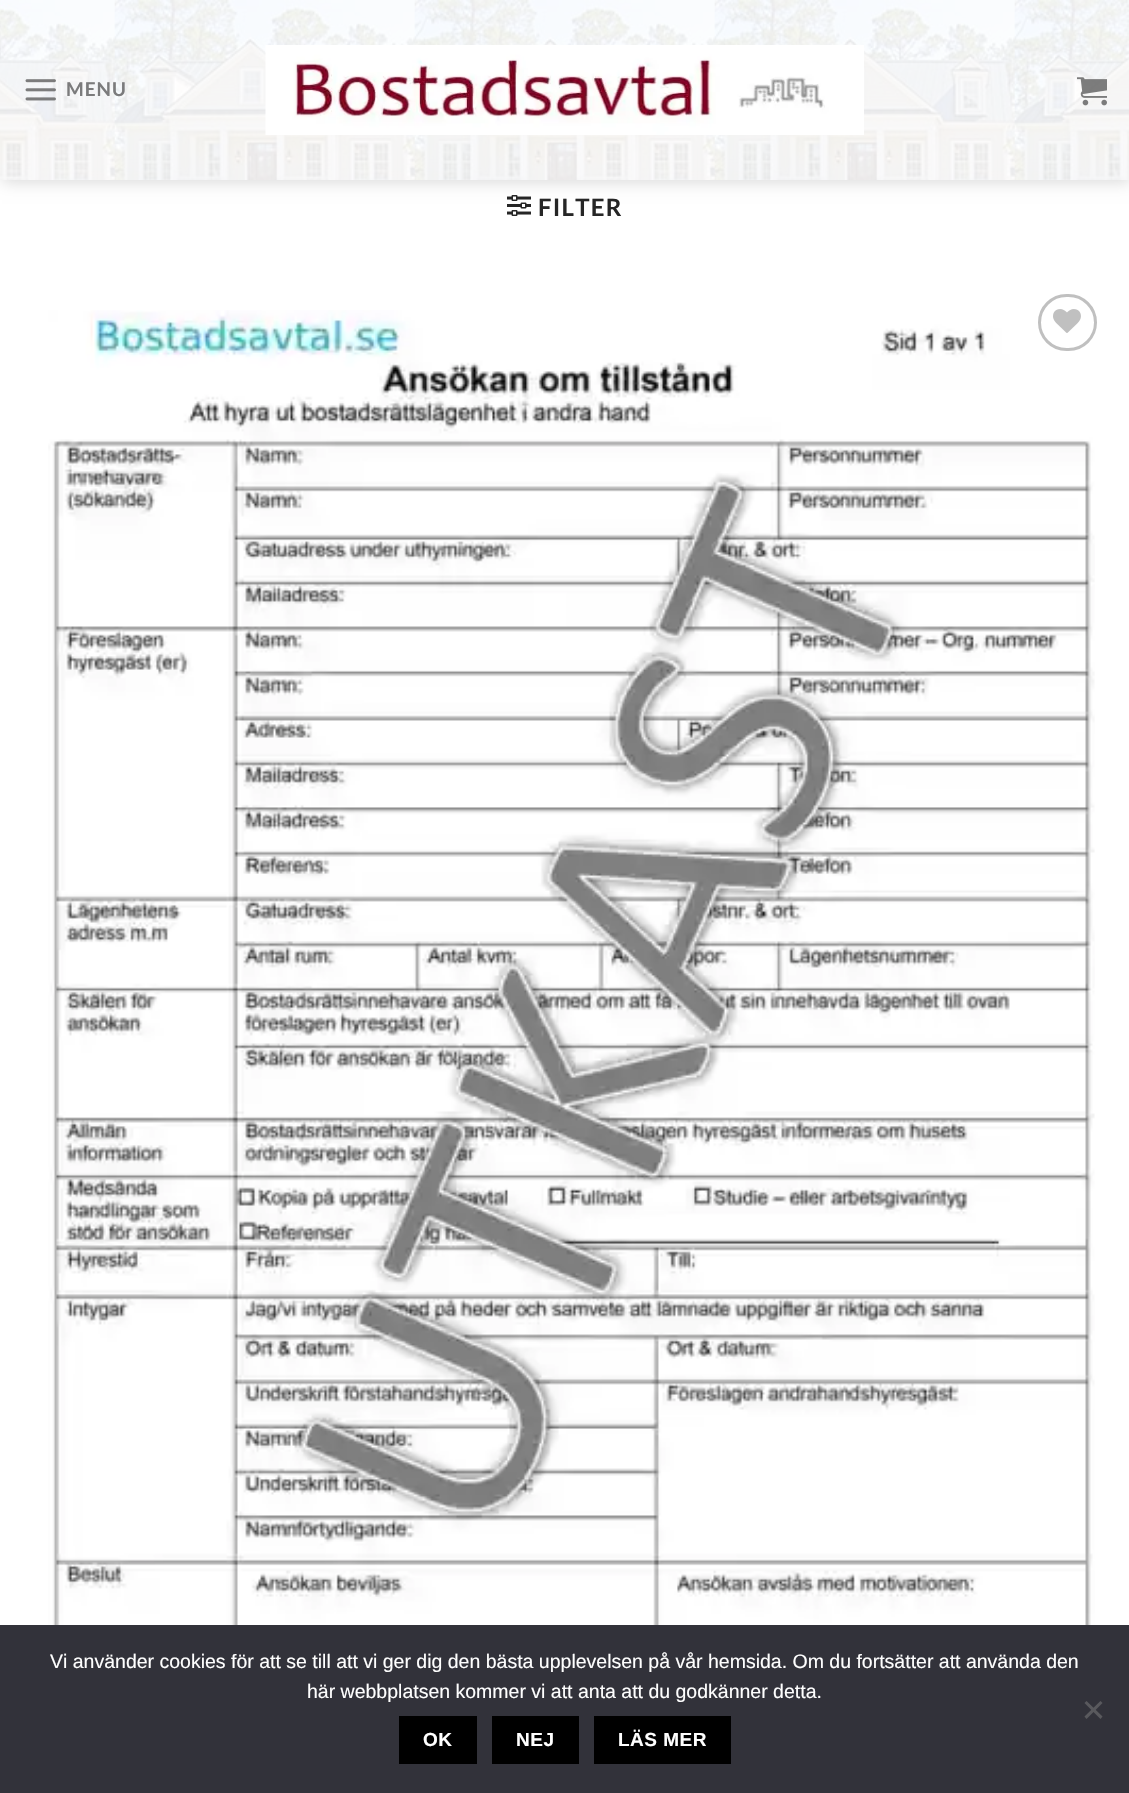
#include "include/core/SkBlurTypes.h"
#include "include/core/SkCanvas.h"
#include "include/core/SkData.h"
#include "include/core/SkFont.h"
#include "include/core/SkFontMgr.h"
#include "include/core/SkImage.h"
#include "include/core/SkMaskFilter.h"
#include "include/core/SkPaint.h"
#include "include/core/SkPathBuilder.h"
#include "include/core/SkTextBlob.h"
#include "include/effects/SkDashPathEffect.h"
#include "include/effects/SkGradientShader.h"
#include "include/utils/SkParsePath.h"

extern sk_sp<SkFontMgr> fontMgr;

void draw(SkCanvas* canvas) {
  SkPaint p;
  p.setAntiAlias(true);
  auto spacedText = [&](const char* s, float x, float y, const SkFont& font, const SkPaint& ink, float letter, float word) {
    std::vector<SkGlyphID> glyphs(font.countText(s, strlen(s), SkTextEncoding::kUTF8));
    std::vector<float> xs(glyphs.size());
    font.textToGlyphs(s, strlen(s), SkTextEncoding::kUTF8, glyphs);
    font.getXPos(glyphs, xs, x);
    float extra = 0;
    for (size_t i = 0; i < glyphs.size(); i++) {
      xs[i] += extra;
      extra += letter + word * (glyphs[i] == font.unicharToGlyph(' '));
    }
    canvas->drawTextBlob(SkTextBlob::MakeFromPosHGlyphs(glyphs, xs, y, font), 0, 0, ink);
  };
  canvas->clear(SK_ColorWHITE);
  canvas->drawImageRect(SkImages::DeferredFromEncodedData(SkData::MakeFromFileName("images/5.png")), SkRect::MakeLTRB(507, 195, 531, 216), SkSamplingOptions());
  p.setColor(SkColorSetARGB(38, 0, 0, 0));
  p.setMaskFilter(SkMaskFilter::MakeBlur(kNormal_SkBlurStyle, 7.5f));
  canvas->drawRect(SkRect::MakeLTRB(2, 2, 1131, 182), p);
  p.setMaskFilter(nullptr);
  canvas->drawImageRect(SkImages::DeferredFromEncodedData(SkData::MakeFromFileName("images/1.png")), SkRect::MakeLTRB(0, 0, 1129, 180), SkSamplingOptions());
  canvas->drawImageRect(SkImages::DeferredFromEncodedData(SkData::MakeFromFileName("images/2.png")), SkRect::MakeLTRB(25, 79, 56, 101), SkSamplingOptions());
  canvas->drawImageRect(SkImages::DeferredFromEncodedData(SkData::MakeFromFileName("images/3.png")), SkRect::MakeLTRB(265, 45, 864, 135), SkSamplingOptions());
  canvas->drawImageRect(SkImages::DeferredFromEncodedData(SkData::MakeFromFileName("images/4.png")), SkRect::MakeLTRB(1077, 77, 1107, 106), SkSamplingOptions());
  canvas->drawImageRect(SkImages::DeferredFromEncodedData(SkData::MakeFromFileName("images/7.png")), SkRect::MakeLTRB(48, 310, 1095, 1625), SkSamplingOptions());
  p.setStyle(SkPaint::kStroke_Style);
  p.setStrokeWidth(3);
  p.setColor(SkColorSetRGB(192, 192, 192));
  canvas->drawRoundRect(SkRect::MakeLTRB(1039.5f, 295.5f, 1095.5f, 349.5f), 27, 27, p);
  canvas->drawImageRect(SkImages::DeferredFromEncodedData(SkData::MakeFromFileName("images/6.png")), SkRect::MakeLTRB(1053, 309, 1081, 333), SkSamplingOptions());
  p.setStyle(SkPaint::kFill_Style);
  p.setColor(SkColorSetRGB(50, 50, 58));
  canvas->drawRect(SkRect::MakeLTRB(0, 1625, 1129, 1793), p);
  p.setColor(SkColorSetRGB(89, 89, 93));
  canvas->drawPath(SkPathBuilder().moveTo(1100.5f, 1701).lineTo(1102.5f, 1703).lineTo(1086.5f, 1719).lineTo(1084.5f, 1716.5f).close().detach(), p);
  canvas->drawPath(SkPathBuilder().moveTo(1084.5f, 1703).lineTo(1086.5f, 1701).lineTo(1102.5f, 1716.5f).lineTo(1100.5f, 1719).close().detach(), p);
  p.setColor(SK_ColorBLACK);
  canvas->drawRect(SkRect::MakeLTRB(399, 1716, 477, 1764), p);
  canvas->drawRect(SkRect::MakeLTRB(492, 1716, 579, 1764), p);
  canvas->drawRect(SkRect::MakeLTRB(594, 1716, 731, 1764), p);
  SkFont font1(fontMgr->matchFamilyStyle("Lato", SkFontStyle::Bold()), 19);
  font1.setSubpixel(true);
  p.setColor(SkColorSetRGB(123, 123, 124));
  spacedText("MENU", 66, 96, font1, p, 1, 0);
  SkFont font2(fontMgr->matchFamilyStyle("Lato", SkFontStyle::Bold()), 24);
  font2.setSubpixel(true);
  p.setColor(SkColorSetRGB(38, 38, 38));
  spacedText("FILTER", 538, 216, font2, p, 1.25f, 0);
  SkFont font3(fontMgr->matchFamilyStyle("Liberation Sans", SkFontStyle::Normal()), 19.5f);
  font3.setSubpixel(true);
  p.setColor(SK_ColorWHITE);
  canvas->drawString("Vi använder cookies för att se till att vi ger dig den bästa upplevelsen på vår hemsida. Om du fortsätter att använda den", 50, 1668, font3, p);
  canvas->drawString("här webbplatsen kommer vi att anta att du godkänner detta.", 307, 1698, font3, p);
  SkFont font4(fontMgr->matchFamilyStyle("Liberation Sans", SkFontStyle::Bold()), 19);
  font4.setSubpixel(true);
  spacedText("OK", 423, 1746, font4, p, 0.5f, 0);
  spacedText("NEJ", 516, 1746, font4, p, 0.5f, 0);
  spacedText("LÄS MER", 618, 1746, font4, p, 0.5f, 0);
}
